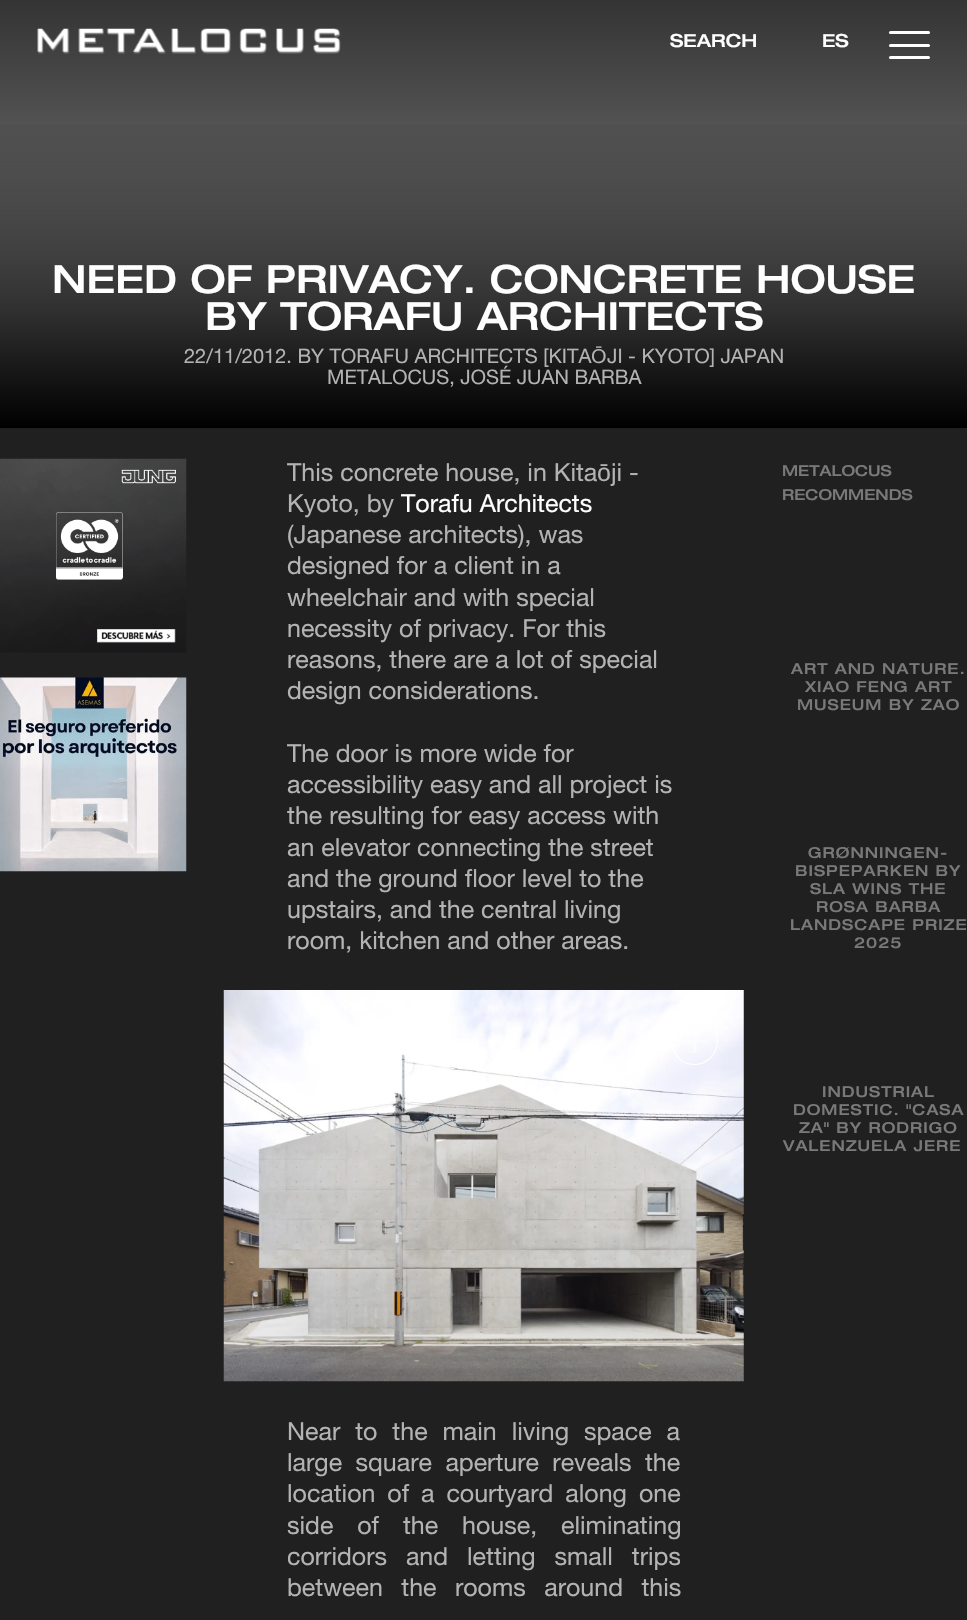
#include "include/core/SkBlurTypes.h"
#include "include/core/SkCanvas.h"
#include "include/core/SkData.h"
#include "include/core/SkFont.h"
#include "include/core/SkFontMgr.h"
#include "include/core/SkImage.h"
#include "include/core/SkMaskFilter.h"
#include "include/core/SkPaint.h"
#include "include/core/SkPathBuilder.h"
#include "include/core/SkTextBlob.h"
#include "include/effects/SkDashPathEffect.h"
#include "include/effects/SkGradientShader.h"
#include "include/utils/SkParsePath.h"

extern sk_sp<SkFontMgr> fontMgr;

void draw(SkCanvas* canvas) {
  SkPaint p;
  p.setAntiAlias(true);
  auto spacedText = [&](const char* s, float x, float y, const SkFont& font, const SkPaint& ink, float letter, float word) {
    std::vector<SkGlyphID> glyphs(font.countText(s, strlen(s), SkTextEncoding::kUTF8));
    std::vector<float> xs(glyphs.size());
    font.textToGlyphs(s, strlen(s), SkTextEncoding::kUTF8, glyphs);
    font.getXPos(glyphs, xs, x);
    float extra = 0;
    for (size_t i = 0; i < glyphs.size(); i++) {
      xs[i] += extra;
      extra += letter + word * (glyphs[i] == font.unicharToGlyph(' '));
    }
    canvas->drawTextBlob(SkTextBlob::MakeFromPosHGlyphs(glyphs, xs, y, font), 0, 0, ink);
  };
  canvas->clear(SkColorSetRGB(32, 32, 32));
  {
    const SkColor colors[] = {SkColorSetRGB(52, 52, 52), SkColorSetRGB(128, 128, 128)};
    const float stops[] = {0, 1};
    const SkPoint ends[] = {{484, 0}, {484, 313}};
    p.setShader(SkGradientShader::MakeLinear(ends, colors, stops, 2, SkTileMode::kClamp));
    p.setAlpha(255);
  }
  canvas->drawRect(SkRect::MakeLTRB(0, 0, 967, 313), p);
  canvas->drawImageRect(SkImages::DeferredFromEncodedData(SkData::MakeFromFileName("images/1.png")), SkRect::MakeLTRB(37, 28, 341, 54), SkSamplingOptions());
  p.setShader(nullptr);
  p.setColor(SK_ColorWHITE);
  canvas->drawRoundRect(SkRect::MakeLTRB(889, 31, 930, 34), 1.5f, 1.5f, p);
  canvas->drawRoundRect(SkRect::MakeLTRB(889, 44, 930, 47), 1.5f, 1.5f, p);
  canvas->drawRoundRect(SkRect::MakeLTRB(889, 56, 930, 59), 1.5f, 1.5f, p);
  p.setColor(SkColorSetRGB(128, 128, 128));
  canvas->drawRect(SkRect::MakeLTRB(0, 313, 967, 426), p);
  {
    const SkColor colors[] = {SkColorSetARGB(0, 0, 0, 0), SkColorSetARGB(245, 0, 0, 0), SK_ColorBLACK};
    const float stops[] = {0, 0.96f, 1};
    const SkPoint ends[] = {{484, 115}, {484, 428}};
    p.setShader(SkGradientShader::MakeLinear(ends, colors, stops, 3, SkTileMode::kClamp));
    p.setAlpha(255);
  }
  canvas->drawRect(SkRect::MakeLTRB(0, 125, 967, 428), p);
  canvas->drawImageRect(SkImages::DeferredFromEncodedData(SkData::MakeFromFileName("images/2.png")), SkRect::MakeLTRB(0, 458, 187, 653), SkSamplingOptions());
  canvas->drawImageRect(SkImages::DeferredFromEncodedData(SkData::MakeFromFileName("images/3.png")), SkRect::MakeLTRB(0, 677, 187, 872), SkSamplingOptions());
  canvas->drawImageRect(SkImages::DeferredFromEncodedData(SkData::MakeFromFileName("images/4.png")), SkRect::MakeLTRB(223, 990, 744, 1382), SkSamplingOptions());
  p.setStyle(SkPaint::kStroke_Style);
  p.setStrokeWidth(1.2f);
  p.setStrokeCap(SkPaint::kSquare_Cap);
  p.setShader(nullptr);
  p.setColor(SK_ColorWHITE);
  canvas->drawPath(SkPathBuilder().moveTo(695, 1028).lineTo(695, 1052.5f).moveTo(706.5f, 1041).lineTo(682, 1041).detach(), p);
  p.setStrokeCap(SkPaint::kButt_Cap);
  canvas->drawOval(SkRect::MakeLTRB(671.5f, 1016.5f, 717.5f, 1064.5f), p);
  SkFont font1(fontMgr->matchFamilyStyle("Helvetica Neue", SkFontStyle(500, SkFontStyle::kNormal_Width, SkFontStyle::kUpright_Slant)), 18);
  font1.setSubpixel(true);
  p.setStyle(SkPaint::kFill_Style);
  p.setColor(SkColorSetRGB(254, 254, 254));
  canvas->drawString("SEARCH", 670, 47, font1, p);
  canvas->drawString("ES", 822, 47, font1, p);
  SkFont font2(fontMgr->matchFamilyStyle("Helvetica Neue", SkFontStyle(500, SkFontStyle::kNormal_Width, SkFontStyle::kUpright_Slant)), 38.75f);
  font2.setSubpixel(true);
  canvas->drawString("NEED OF PRIVACY. CONCRETE HOUSE", 52, 293, font2, p);
  canvas->drawString("BY TORAFU ARCHITECTS", 205, 330, font2, p);
  SkFont font3(fontMgr->matchFamilyStyle("Helvetica Neue", SkFontStyle::Normal()), 20);
  font3.setSubpixel(true);
  p.setColor(SkColorSetRGB(179, 179, 179));
  canvas->drawString("22/11/2012. BY TORAFU ARCHITECTS [KITA", 184, 363, font3, p);
  SkFont font4(fontMgr->matchFamilyStyle("Liberation Sans", SkFontStyle::Normal()), 20);
  font4.setSubpixel(true);
  canvas->drawString("Ō", 591, 363, font4, p);
  canvas->drawString("JI - KYOTO] JAPAN", 607, 363, font3, p);
  canvas->drawString("METALOCUS, JOSÉ JUAN BARBA", 327, 384, font3, p);
  SkFont font5(fontMgr->matchFamilyStyle("Helvetica Neue", SkFontStyle::Normal()), 25);
  font5.setSubpixel(true);
  canvas->drawString("This concrete house, in Kita", 287, 481, font5, p);
  SkFont font6(fontMgr->matchFamilyStyle("Liberation Sans", SkFontStyle::Normal()), 25);
  font6.setSubpixel(true);
  canvas->drawString("ō", 597, 481, font6, p);
  canvas->drawString("ji -", 611, 481, font5, p);
  canvas->drawString("Kyoto, by", 287, 512, font5, p);
  p.setColor(SkColorSetRGB(254, 254, 254));
  canvas->drawString("Torafu Architects", 401, 512, font5, p);
  p.setColor(SkColorSetRGB(179, 179, 179));
  canvas->drawString("(Japanese architects), was", 287, 543, font5, p);
  canvas->drawString("designed for a client in a", 287, 574, font5, p);
  canvas->drawString("wheelchair and with special", 287, 606, font5, p);
  canvas->drawString("necessity of privacy. For this", 287, 637, font5, p);
  canvas->drawString("reasons, there are a lot of special", 287, 668, font5, p);
  canvas->drawString("design considerations.", 287, 699, font5, p);
  canvas->drawString("The door is more wide for", 287, 762, font5, p);
  canvas->drawString("accessibility easy and all project is", 287, 793, font5, p);
  canvas->drawString("the resulting for easy access with", 287, 824, font5, p);
  canvas->drawString("an elevator connecting the street", 287, 856, font5, p);
  canvas->drawString("and the ground floor level to the", 287, 887, font5, p);
  canvas->drawString("upstairs, and the central living", 287, 918, font5, p);
  canvas->drawString("room, kitchen and other areas.", 287, 949, font5, p);
  spacedText("Near to the main living space a", 287, 1440, font5, p, 0, 8);
  spacedText("large square aperture reveals the", 287, 1471, font5, p, 0, 6.5f);
  spacedText("location of a courtyard along one", 287, 1502, font5, p, 0, 5);
  spacedText("side of the house, eliminating", 287, 1534, font5, p, 0, 17);
  canvas->save();
  canvas->clipRect(SkRect::MakeLTRB(288, 1419, 680, 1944));
  spacedText("corridors and letting small trips", 287, 1565, font5, p, 0, 12);
  canvas->restore();
  spacedText("between the rooms around this", 287, 1596, font5, p, 0, 11.5f);
  SkFont font7(fontMgr->matchFamilyStyle("Helvetica Neue", SkFontStyle(500, SkFontStyle::kNormal_Width, SkFontStyle::kUpright_Slant)), 15);
  font7.setSubpixel(true);
  p.setColor(SkColorSetRGB(121, 121, 121));
  canvas->drawString("METALOCUS", 782, 476, font7, p);
  canvas->drawString("RECOMMENDS", 782, 500, font7, p);
  spacedText("ART AND NATURE.", 791, 674, font7, p, 1, 0);
  spacedText("XIAO FENG ART", 805, 692, font7, p, 1, 0);
  spacedText("MUSEUM BY ZAO", 797, 710, font7, p, 1, 0);
  spacedText("GRØNNINGEN-", 808, 858, font7, p, 1, 0);
  spacedText("BISPEPARKEN BY", 795, 876, font7, p, 1, 0);
  spacedText("SLA WINS THE", 810, 894, font7, p, 1, 0);
  spacedText("ROSA BARBA", 816, 912, font7, p, 1, 0);
  spacedText("LANDSCAPE PRIZE", 790, 930, font7, p, 1, 0);
  spacedText("2025", 854, 948, font7, p, 1, 0);
  spacedText("INDUSTRIAL", 822, 1097, font7, p, 1, 0);
  spacedText("DOMESTIC. \"CASA", 793, 1115, font7, p, 1, 0);
  spacedText("ZA\" BY RODRIGO", 799, 1133, font7, p, 1, 0);
  spacedText("VALENZUELA JERE", 783, 1151, font7, p, 1, 0);
}
